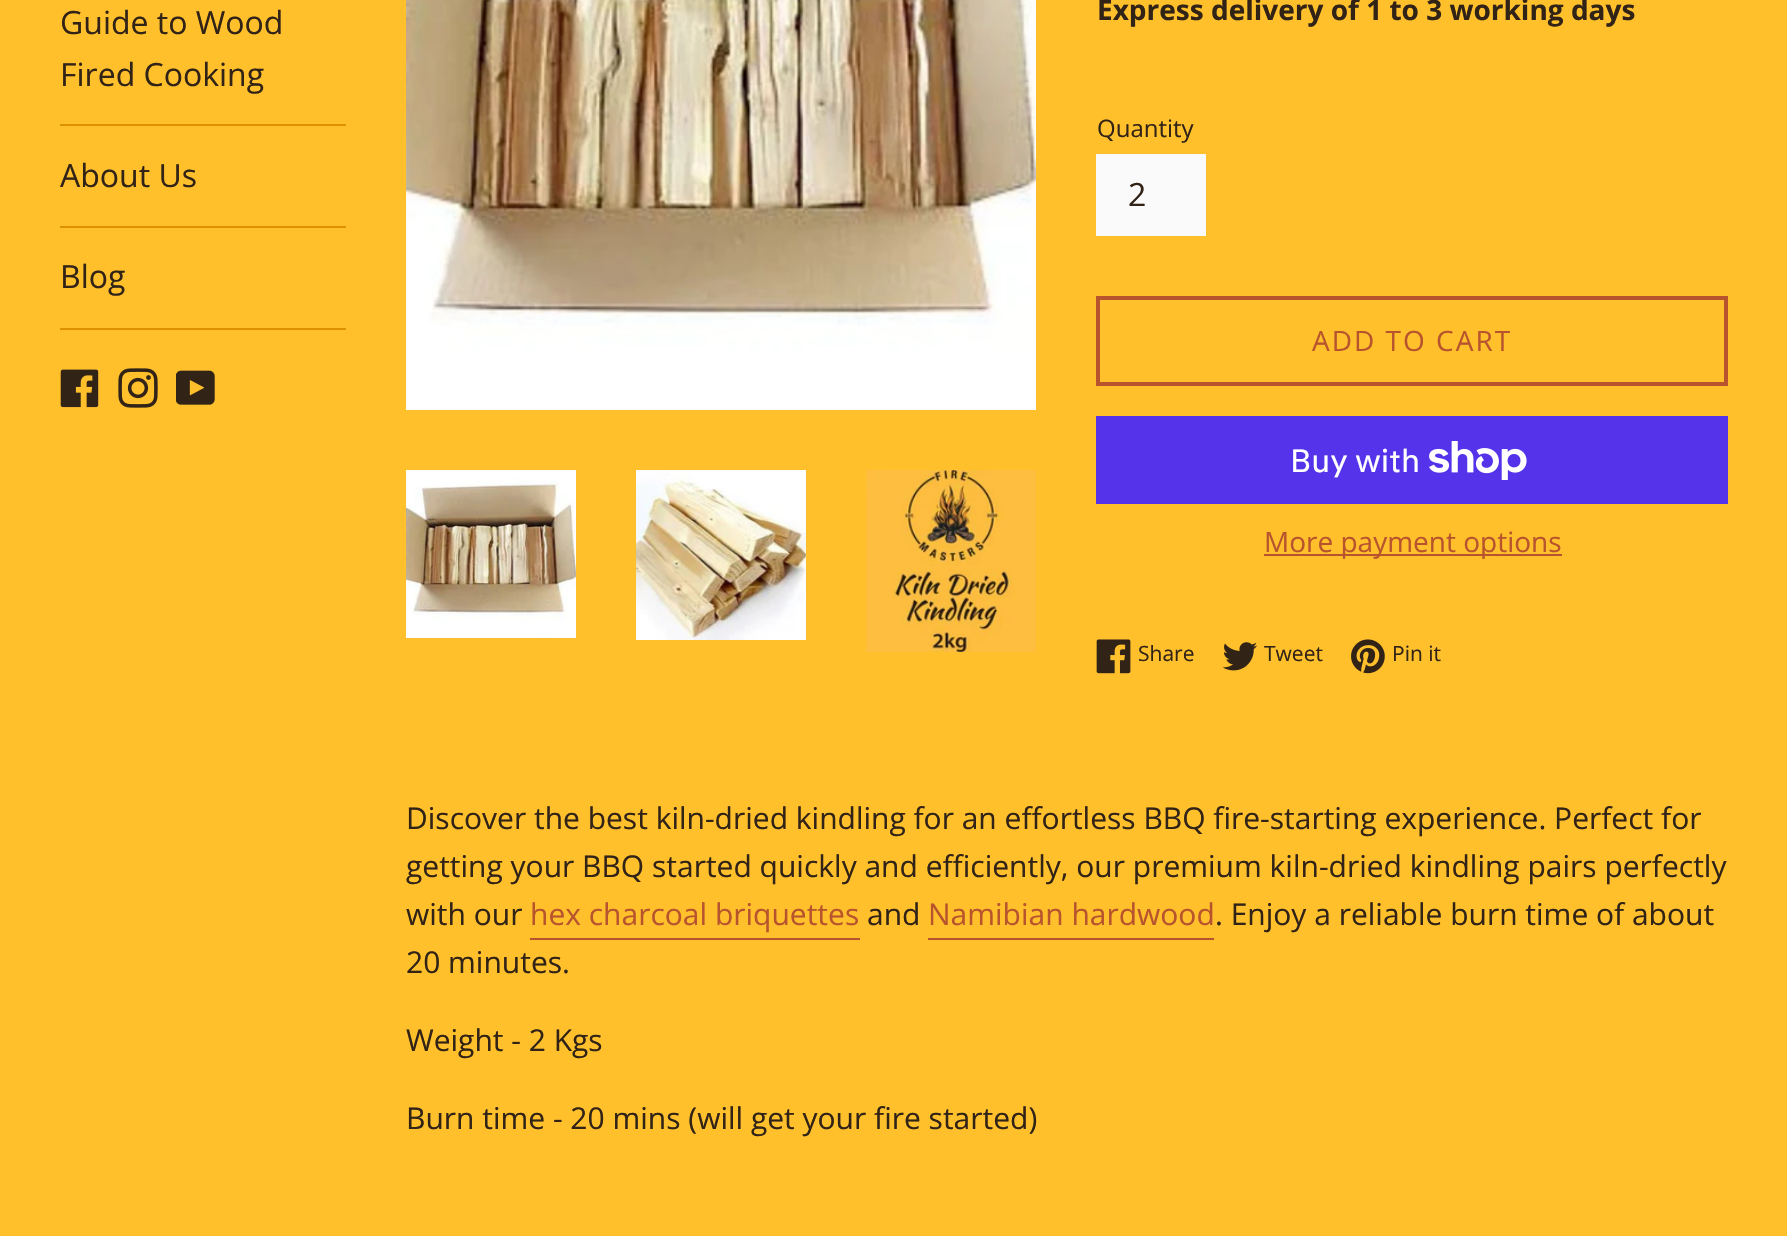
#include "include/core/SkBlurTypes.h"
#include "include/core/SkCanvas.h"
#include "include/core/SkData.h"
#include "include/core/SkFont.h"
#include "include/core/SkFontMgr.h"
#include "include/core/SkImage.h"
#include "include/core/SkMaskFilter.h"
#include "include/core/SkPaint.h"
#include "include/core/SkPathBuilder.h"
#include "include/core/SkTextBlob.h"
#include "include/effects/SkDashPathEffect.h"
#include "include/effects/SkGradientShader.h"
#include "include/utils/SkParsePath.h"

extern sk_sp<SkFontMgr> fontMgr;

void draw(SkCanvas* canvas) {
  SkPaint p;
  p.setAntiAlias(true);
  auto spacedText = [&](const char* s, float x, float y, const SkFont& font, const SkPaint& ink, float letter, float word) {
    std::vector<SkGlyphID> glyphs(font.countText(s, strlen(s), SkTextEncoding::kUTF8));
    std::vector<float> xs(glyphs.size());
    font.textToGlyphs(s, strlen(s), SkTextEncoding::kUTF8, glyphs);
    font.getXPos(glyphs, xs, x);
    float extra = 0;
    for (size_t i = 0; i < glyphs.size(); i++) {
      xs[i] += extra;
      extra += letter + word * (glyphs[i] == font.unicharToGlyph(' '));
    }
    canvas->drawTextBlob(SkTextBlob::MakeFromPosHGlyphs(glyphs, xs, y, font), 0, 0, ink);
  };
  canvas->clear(SkColorSetRGB(255, 192, 44));
  p.setColor(SkColorSetRGB(221, 146, 0));
  canvas->drawRect(SkRect::MakeLTRB(60, 124, 346, 126), p);
  canvas->drawRect(SkRect::MakeLTRB(60, 226, 346, 228), p);
  canvas->drawRect(SkRect::MakeLTRB(60, 328, 346, 330), p);
  canvas->drawImageRect(SkImages::DeferredFromEncodedData(SkData::MakeFromFileName("images/1.png")), SkRect::MakeLTRB(60, 369, 99, 408), SkSamplingOptions());
  canvas->drawImageRect(SkImages::DeferredFromEncodedData(SkData::MakeFromFileName("images/2.png")), SkRect::MakeLTRB(118, 368, 158, 408), SkSamplingOptions());
  canvas->drawImageRect(SkImages::DeferredFromEncodedData(SkData::MakeFromFileName("images/3.png")), SkRect::MakeLTRB(176, 370, 215, 405), SkSamplingOptions());
  canvas->drawImageRect(SkImages::DeferredFromEncodedData(SkData::MakeFromFileName("images/4.png")), SkRect::MakeLTRB(406, 0, 1036, 410), SkSamplingOptions());
  canvas->drawImageRect(SkImages::DeferredFromEncodedData(SkData::MakeFromFileName("images/5.png")), SkRect::MakeLTRB(406, 470, 576, 638), SkSamplingOptions());
  canvas->drawImageRect(SkImages::DeferredFromEncodedData(SkData::MakeFromFileName("images/6.png")), SkRect::MakeLTRB(636, 470, 806, 640), SkSamplingOptions());
  canvas->drawImageRect(SkImages::DeferredFromEncodedData(SkData::MakeFromFileName("images/7.png")), SkRect::MakeLTRB(866, 470, 1036, 652), SkSamplingOptions());
  p.setColor(SkColorSetRGB(250, 250, 250));
  canvas->drawRect(SkRect::MakeLTRB(1096, 154, 1206, 236), p);
  p.setStyle(SkPaint::kStroke_Style);
  p.setStrokeWidth(4);
  p.setColor(SkColorSetRGB(184, 84, 45));
  canvas->drawRect(SkRect::MakeLTRB(1098, 298, 1726, 384), p);
  p.setStyle(SkPaint::kFill_Style);
  p.setColor(SkColorSetRGB(84, 51, 235));
  canvas->drawRect(SkRect::MakeLTRB(1096, 416, 1728, 504), p);
  canvas->drawImageRect(SkImages::DeferredFromEncodedData(SkData::MakeFromFileName("images/8.png")), SkRect::MakeLTRB(1429, 441, 1527, 480), SkSamplingOptions());
  p.setColor(SkColorSetRGB(184, 84, 45));
  canvas->drawRect(SkRect::MakeLTRB(1264, 554, 1562, 556), p);
  canvas->drawImageRect(SkImages::DeferredFromEncodedData(SkData::MakeFromFileName("images/9.png")), SkRect::MakeLTRB(1096, 639, 1131, 674), SkSamplingOptions());
  canvas->drawImageRect(SkImages::DeferredFromEncodedData(SkData::MakeFromFileName("images/10.png")), SkRect::MakeLTRB(1222, 642, 1257, 671), SkSamplingOptions());
  canvas->drawImageRect(SkImages::DeferredFromEncodedData(SkData::MakeFromFileName("images/11.png")), SkRect::MakeLTRB(1351, 639, 1385, 674), SkSamplingOptions());
  canvas->drawRect(SkRect::MakeLTRB(530, 938, 860, 940), p);
  canvas->drawRect(SkRect::MakeLTRB(928, 938, 1214, 940), p);
  SkFont font1(fontMgr->matchFamilyStyle("Open Sans", SkFontStyle::Normal()), 32);
  font1.setSubpixel(true);
  p.setColor(SkColorSetRGB(50, 35, 23));
  canvas->drawString("Guide to Wood", 60, 34, font1, p);
  canvas->drawString("Fired Cooking", 60, 86, font1, p);
  canvas->drawString("About Us", 60, 187, font1, p);
  canvas->drawString("Blog", 60, 288, font1, p);
  SkFont font2(fontMgr->matchFamilyStyle("Open Sans", SkFontStyle::Bold()), 28);
  font2.setSubpixel(true);
  canvas->drawString("Express delivery of 1 to 3 working days", 1097, 20, font2, p);
  SkFont font3(fontMgr->matchFamilyStyle("Open Sans", SkFontStyle::Normal()), 24);
  font3.setSubpixel(true);
  canvas->drawString("Quantity", 1097, 137, font3, p);
  canvas->drawString("2", 1128, 206, font1, p);
  SkFont font4(fontMgr->matchFamilyStyle("Open Sans", SkFontStyle::Normal()), 28);
  font4.setSubpixel(true);
  p.setColor(SkColorSetRGB(184, 84, 45));
  spacedText("ADD TO CART", 1312, 351, font4, p, 2, 0);
  SkFont font5(fontMgr->matchFamilyStyle("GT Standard", SkFontStyle::Normal()), 32);
  font5.setSubpixel(true);
  p.setColor(SK_ColorWHITE);
  canvas->drawString("Buy with", 1290, 472, font5, p);
  p.setColor(SkColorSetRGB(184, 84, 45));
  canvas->drawString("More payment options", 1264, 552, font4, p);
  SkFont font6(fontMgr->matchFamilyStyle("Open Sans", SkFontStyle::Normal()), 21);
  font6.setSubpixel(true);
  p.setColor(SkColorSetRGB(50, 35, 23));
  canvas->drawString("Share", 1138, 661, font6, p);
  canvas->drawString("Tweet", 1264, 661, font6, p);
  canvas->drawString("Pin it", 1392, 661, font6, p);
  SkFont font7(fontMgr->matchFamilyStyle("Open Sans", SkFontStyle::Normal()), 30);
  font7.setSubpixel(true);
  canvas->drawString("Discover the best kiln-dried kindling for an effortless BBQ fire-starting experience. Perfect for", 406, 829, font7, p);
  canvas->drawString("getting your BBQ started quickly and efficiently, our premium kiln-dried kindling pairs perfectly", 406, 877, font7, p);
  canvas->drawString("with our", 406, 925, font7, p);
  p.setColor(SkColorSetRGB(184, 84, 45));
  canvas->drawString("hex charcoal briquettes", 530, 925, font7, p);
  p.setColor(SkColorSetRGB(50, 35, 23));
  canvas->drawString("and", 867, 925, font7, p);
  p.setColor(SkColorSetRGB(184, 84, 45));
  canvas->drawString("Namibian hardwood", 928, 925, font7, p);
  p.setColor(SkColorSetRGB(50, 35, 23));
  canvas->drawString(". Enjoy a reliable burn time of about", 1215, 925, font7, p);
  canvas->drawString("20 minutes.", 406, 973, font7, p);
  canvas->drawString("Weight - 2 Kgs", 406, 1051, font7, p);
  canvas->drawString("Burn time - 20 mins (will get your fire started)", 406, 1129, font7, p);
}
